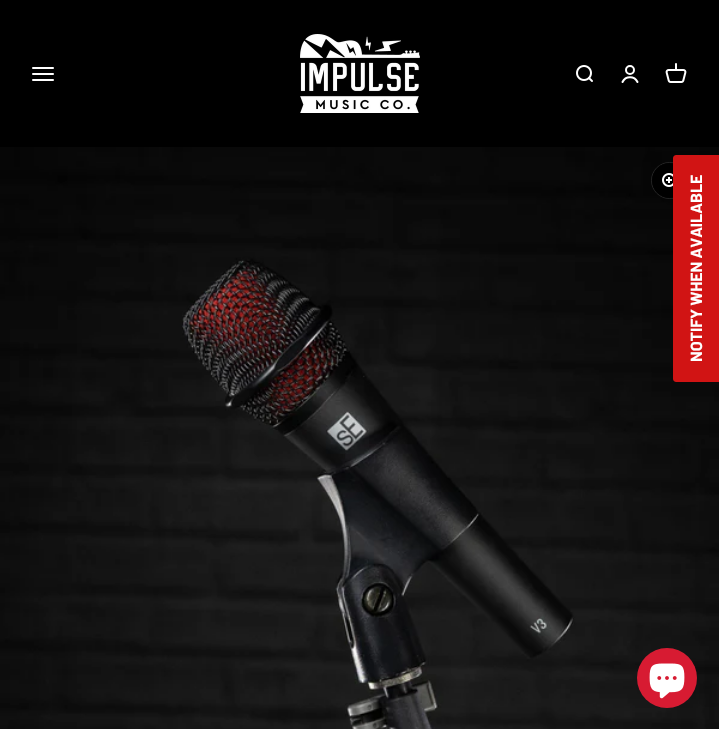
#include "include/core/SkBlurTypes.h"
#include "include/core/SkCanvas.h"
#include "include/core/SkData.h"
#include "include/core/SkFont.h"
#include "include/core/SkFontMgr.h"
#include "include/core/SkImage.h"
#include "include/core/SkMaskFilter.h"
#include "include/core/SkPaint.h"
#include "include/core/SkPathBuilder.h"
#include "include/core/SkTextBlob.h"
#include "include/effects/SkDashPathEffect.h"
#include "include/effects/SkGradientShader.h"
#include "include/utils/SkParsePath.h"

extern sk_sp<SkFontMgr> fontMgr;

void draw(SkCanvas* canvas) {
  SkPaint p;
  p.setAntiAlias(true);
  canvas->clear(SK_ColorBLACK);
  canvas->drawImageRect(SkImages::DeferredFromEncodedData(SkData::MakeFromFileName("images/1.png")), SkRect::MakeLTRB(32, 67, 54, 81), SkSamplingOptions());
  canvas->drawImageRect(SkImages::DeferredFromEncodedData(SkData::MakeFromFileName("images/2.png")), SkRect::MakeLTRB(300, 34, 420, 113), SkSamplingOptions());
  canvas->drawImageRect(SkImages::DeferredFromEncodedData(SkData::MakeFromFileName("images/3.png")), SkRect::MakeLTRB(576, 65, 593, 82), SkSamplingOptions());
  p.setStyle(SkPaint::kStroke_Style);
  p.setStrokeWidth(2);
  p.setColor(SK_ColorWHITE);
  canvas->drawCircle(630, 70, 4, p);
  p.setStrokeCap(SkPaint::kRound_Cap);
  canvas->drawPath(SkPathBuilder().moveTo(622.5f, 82).cubicTo(625.5f, 75.5f, 634.5f, 75.5f, 637.5f, 82).detach(), p);
  canvas->drawImageRect(SkImages::DeferredFromEncodedData(SkData::MakeFromFileName("images/4.png")), SkRect::MakeLTRB(665, 63, 687, 83), SkSamplingOptions());
  canvas->drawImageRect(SkImages::DeferredFromEncodedData(SkData::MakeFromFileName("images/5.png")), SkRect::MakeLTRB(0, 147, 719, 729), SkSamplingOptions());
  p.setStrokeWidth(1);
  p.setStrokeCap(SkPaint::kButt_Cap);
  p.setColor(SkColorSetRGB(36, 36, 36));
  canvas->drawCircle(669.5f, 180.5f, 18, p);
  p.setStyle(SkPaint::kFill_Style);
  p.setColor(SK_ColorBLACK);
  canvas->drawCircle(669.5f, 180.5f, 17.5f, p);
  canvas->drawImageRect(SkImages::DeferredFromEncodedData(SkData::MakeFromFileName("images/6.png")), SkRect::MakeLTRB(662, 173, 673, 187), SkSamplingOptions());
  p.setColor(SkColorSetRGB(209, 20, 20));
  canvas->drawPath(SkPathBuilder().moveTo(673, 379).lineTo(673, 158).cubicTo(673, 156, 675, 155, 676, 155).lineTo(719, 155).lineTo(719, 382).lineTo(676, 382).cubicTo(675, 382, 673, 381, 673, 379).close().detach(), p);
  p.setColor(SkColorSetRGB(215, 27, 50));
  canvas->drawCircle(667, 678, 30, p);
  canvas->drawImageRect(SkImages::DeferredFromEncodedData(SkData::MakeFromFileName("images/7.png")), SkRect::MakeLTRB(649, 663, 685, 699), SkSamplingOptions());
  SkFont font1(fontMgr->matchFamilyStyle("Barlow", SkFontStyle::Bold()), 16);
  font1.setSubpixel(true);
  p.setColor(SK_ColorWHITE);
  canvas->save();
  canvas->rotate(-90, 702, 362);
  canvas->drawString("NOTIFY WHEN AVAILABLE", 702, 362, font1, p);
  canvas->restore();
}
